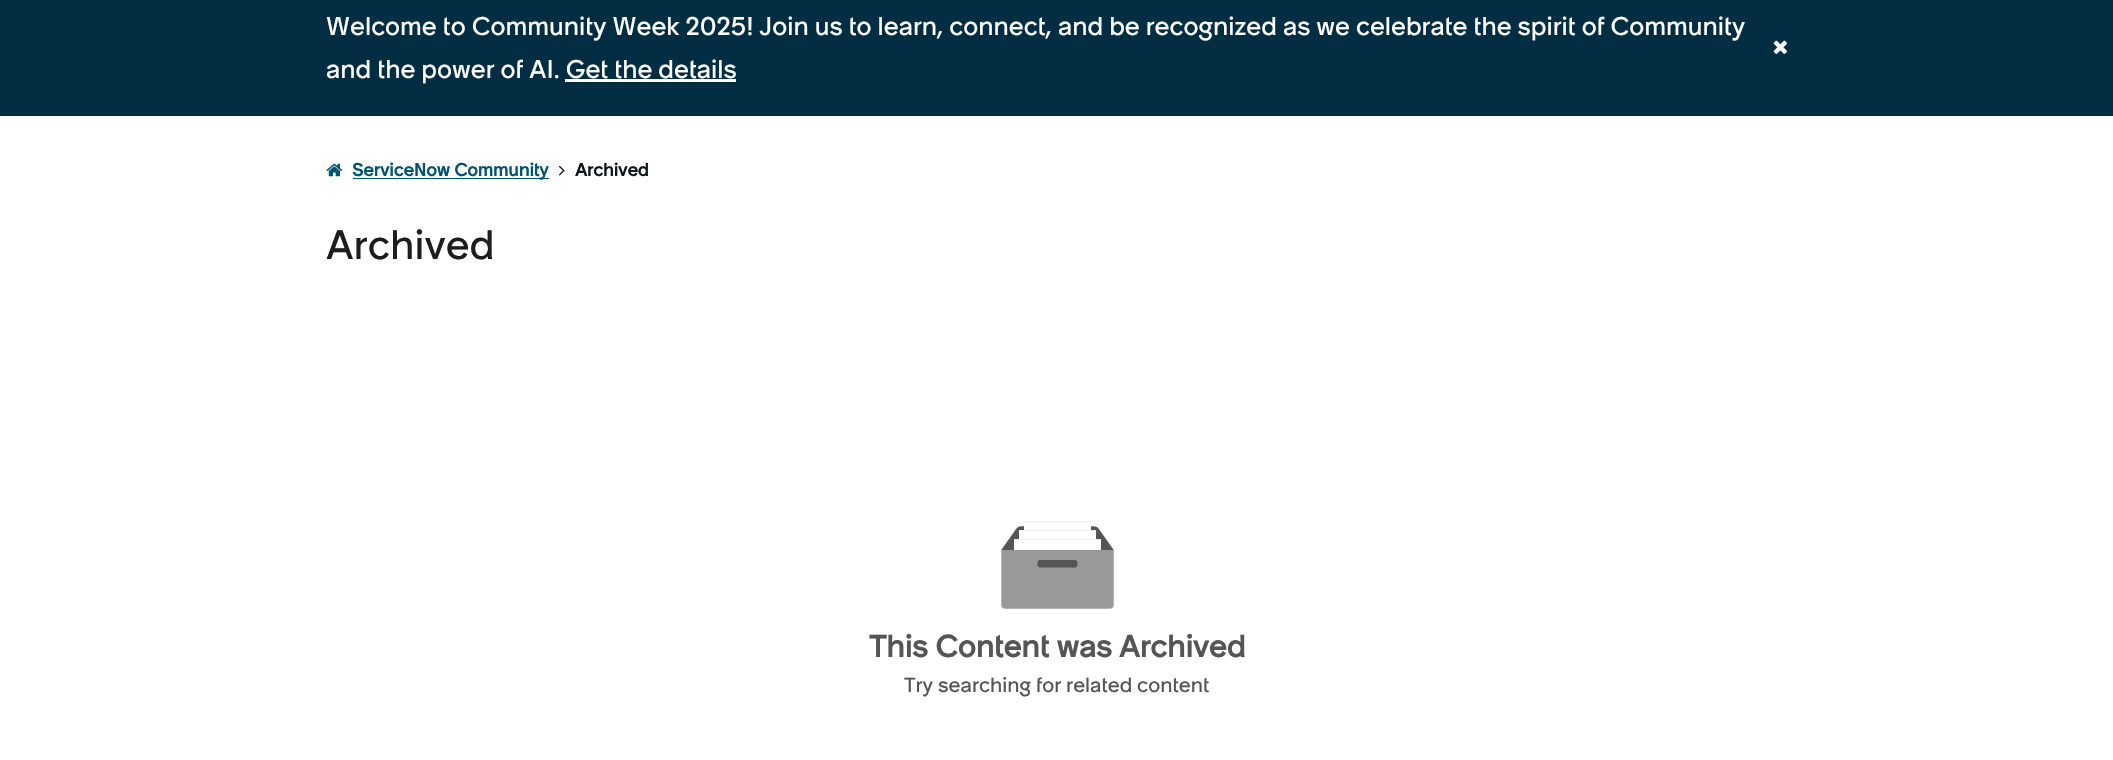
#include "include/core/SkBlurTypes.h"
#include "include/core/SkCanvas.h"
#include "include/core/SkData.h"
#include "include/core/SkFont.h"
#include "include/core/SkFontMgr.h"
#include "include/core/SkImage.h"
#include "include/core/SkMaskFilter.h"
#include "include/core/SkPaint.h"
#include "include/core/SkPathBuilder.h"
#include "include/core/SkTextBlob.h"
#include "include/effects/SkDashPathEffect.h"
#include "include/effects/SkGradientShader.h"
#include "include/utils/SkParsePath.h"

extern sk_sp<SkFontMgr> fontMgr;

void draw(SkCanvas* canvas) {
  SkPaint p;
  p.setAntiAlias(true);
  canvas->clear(SK_ColorWHITE);
  p.setColor(SkColorSetRGB(3, 45, 66));
  canvas->drawRect(SkRect::MakeLTRB(0, 0, 2113, 116), p);
  p.setColor(SK_ColorWHITE);
  canvas->drawRect(SkRect::MakeLTRB(565, 79, 736, 82), p);
  canvas->drawImageRect(SkImages::DeferredFromEncodedData(SkData::MakeFromFileName("images/1.png")), SkRect::MakeLTRB(1773, 40, 1787, 54), SkSamplingOptions());
  canvas->drawImageRect(SkImages::DeferredFromEncodedData(SkData::MakeFromFileName("images/2.png")), SkRect::MakeLTRB(326, 163, 343, 177), SkSamplingOptions());
  p.setColor(SkColorSetRGB(2, 84, 112));
  canvas->drawRect(SkRect::MakeLTRB(353, 178, 549, 179), p);
  canvas->drawImageRect(SkImages::DeferredFromEncodedData(SkData::MakeFromFileName("images/3.png")), SkRect::MakeLTRB(558, 165, 565, 176), SkSamplingOptions());
  canvas->drawImageRect(SkImages::DeferredFromEncodedData(SkData::MakeFromFileName("images/4.png")), SkRect::MakeLTRB(1001, 521, 1114, 609), SkSamplingOptions());
  SkFont font1(fontMgr->matchFamilyStyle("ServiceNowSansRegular", SkFontStyle::Normal()), 25);
  font1.setSubpixel(true);
  p.setColor(SK_ColorWHITE);
  canvas->drawString("Welcome to Community Week 2025! Join us to learn, connect, and be recognized as we celebrate the spirit of Community", 326, 35, font1, p);
  canvas->drawString("and the power of AI. Get the details", 326, 78, font1, p);
  SkFont font2(fontMgr->matchFamilyStyle("ServiceNowSansRegular", SkFontStyle::Bold()), 17.5f);
  font2.setSubpixel(true);
  p.setColor(SkColorSetRGB(2, 84, 112));
  canvas->drawString("ServiceNow Community", 352, 176, font2, p);
  p.setColor(SkColorSetRGB(16, 23, 27));
  canvas->drawString("Archived", 575, 176, font2, p);
  SkFont font3(fontMgr->matchFamilyStyle("ServiceNowSansRegular", SkFontStyle::Normal()), 40);
  font3.setSubpixel(true);
  p.setColor(SkColorSetRGB(29, 29, 29));
  canvas->drawString("Archived", 326, 259, font3, p);
  SkFont font4(fontMgr->matchFamilyStyle("ServiceNowSansRegular", SkFontStyle::Bold()), 30);
  font4.setSubpixel(true);
  p.setColor(SkColorSetRGB(85, 85, 85));
  canvas->drawString("This Content was Archived", 869, 657, font4, p);
  SkFont font5(fontMgr->matchFamilyStyle("ServiceNowSansRegular", SkFontStyle::Normal()), 20);
  font5.setSubpixel(true);
  canvas->drawString("Try searching for related content", 904, 692, font5, p);
}
